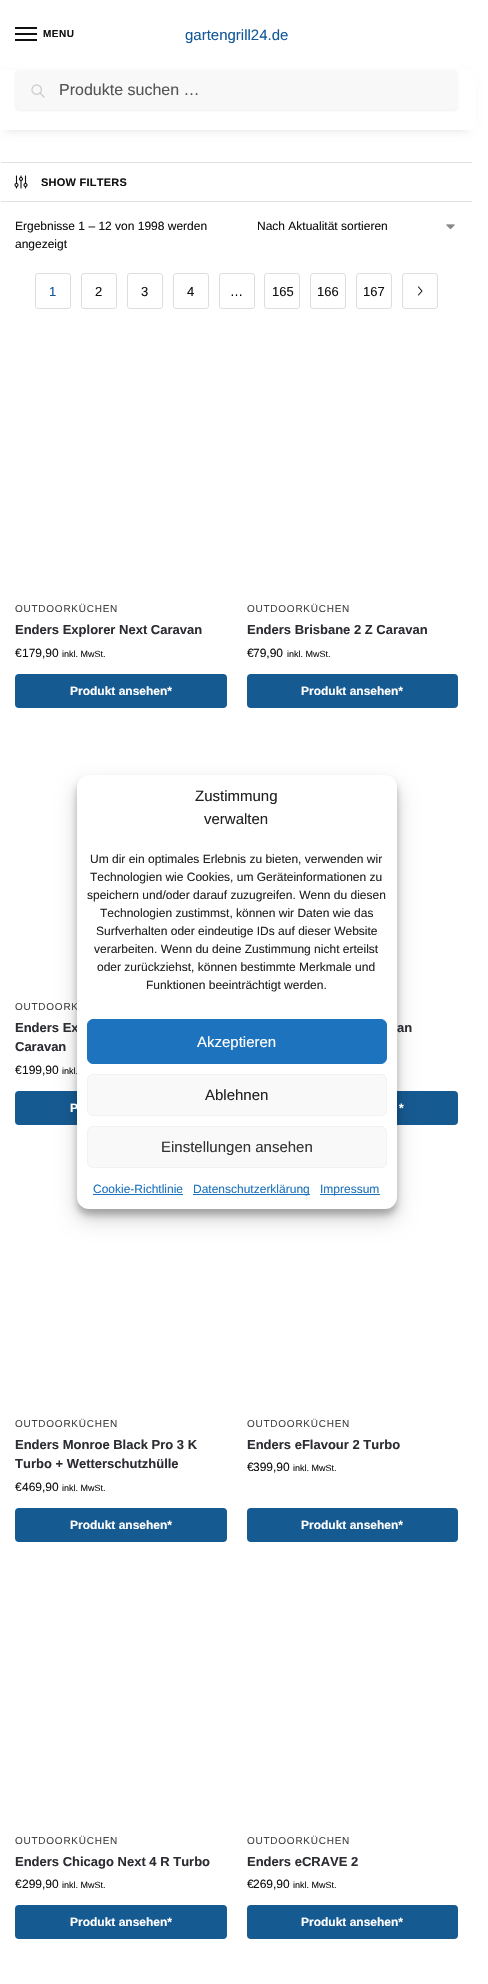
#include "include/core/SkBlurTypes.h"
#include "include/core/SkCanvas.h"
#include "include/core/SkData.h"
#include "include/core/SkFont.h"
#include "include/core/SkFontMgr.h"
#include "include/core/SkImage.h"
#include "include/core/SkMaskFilter.h"
#include "include/core/SkPaint.h"
#include "include/core/SkPathBuilder.h"
#include "include/core/SkTextBlob.h"
#include "include/effects/SkDashPathEffect.h"
#include "include/effects/SkGradientShader.h"
#include "include/utils/SkParsePath.h"

extern sk_sp<SkFontMgr> fontMgr;

void draw(SkCanvas* canvas) {
  SkPaint p;
  p.setAntiAlias(true);
  auto spacedText = [&](const char* s, float x, float y, const SkFont& font, const SkPaint& ink, float letter, float word) {
    std::vector<SkGlyphID> glyphs(font.countText(s, strlen(s), SkTextEncoding::kUTF8));
    std::vector<float> xs(glyphs.size());
    font.textToGlyphs(s, strlen(s), SkTextEncoding::kUTF8, glyphs);
    font.getXPos(glyphs, xs, x);
    float extra = 0;
    for (size_t i = 0; i < glyphs.size(); i++) {
      xs[i] += extra;
      extra += letter + word * (glyphs[i] == font.unicharToGlyph(' '));
    }
    canvas->drawTextBlob(SkTextBlob::MakeFromPosHGlyphs(glyphs, xs, y, font), 0, 0, ink);
  };
  canvas->clear(SK_ColorWHITE);
  p.setColor(SkColorSetRGB(17, 17, 17));
  canvas->drawRect(SkRect::MakeLTRB(15, 27, 37, 29), p);
  canvas->drawRect(SkRect::MakeLTRB(15, 33, 37, 35), p);
  canvas->drawRect(SkRect::MakeLTRB(15, 39, 37, 41), p);
  p.setColor(SkColorSetARGB(46, 0, 0, 0));
  p.setMaskFilter(SkMaskFilter::MakeBlur(kNormal_SkBlurStyle, 5));
  canvas->drawRect(SkRect::MakeLTRB(5, 78, 468, 128), p);
  p.setMaskFilter(nullptr);
  p.setColor(SK_ColorWHITE);
  canvas->drawRect(SkRect::MakeLTRB(0, 70, 473, 130), p);
  p.setColor(SkColorSetARGB(13, 0, 0, 0));
  p.setMaskFilter(SkMaskFilter::MakeBlur(kNormal_SkBlurStyle, 1));
  canvas->drawRoundRect(SkRect::MakeLTRB(15, 71, 458, 111), 5, 5, p);
  p.setMaskFilter(nullptr);
  p.setColor(SkColorSetRGB(248, 248, 248));
  canvas->drawRoundRect(SkRect::MakeLTRB(15, 70, 458, 110), 5, 5, p);
  canvas->drawImageRect(SkImages::DeferredFromEncodedData(SkData::MakeFromFileName("images/1.png")), SkRect::MakeLTRB(31, 84, 45, 98), SkSamplingOptions());
  p.setColor(SK_ColorWHITE);
  canvas->drawRect(SkRect::MakeLTRB(473, 77, 476, 129), p);
  p.setColor(SkColorSetRGB(226, 226, 226));
  canvas->drawRect(SkRect::MakeLTRB(1, 162, 472, 163), p);
  canvas->drawRect(SkRect::MakeLTRB(1, 201, 472, 202), p);
  canvas->drawImageRect(SkImages::DeferredFromEncodedData(SkData::MakeFromFileName("images/2.png")), SkRect::MakeLTRB(14, 175, 28, 189), SkSamplingOptions());
  canvas->drawImageRect(SkImages::DeferredFromEncodedData(SkData::MakeFromFileName("images/3.png")), SkRect::MakeLTRB(446, 224, 455, 230), SkSamplingOptions());
  p.setStyle(SkPaint::kStroke_Style);
  p.setStrokeWidth(1);
  p.setColor(SkColorSetRGB(223, 222, 222));
  canvas->drawRoundRect(SkRect::MakeLTRB(35.5f, 273.5f, 70.5f, 308.5f), 2.5f, 2.5f, p);
  canvas->drawRoundRect(SkRect::MakeLTRB(81.5f, 273.5f, 116.5f, 308.5f), 2.5f, 2.5f, p);
  canvas->drawRoundRect(SkRect::MakeLTRB(127.5f, 273.5f, 162.5f, 308.5f), 2.5f, 2.5f, p);
  canvas->drawRoundRect(SkRect::MakeLTRB(173.5f, 273.5f, 208.5f, 308.5f), 2.5f, 2.5f, p);
  canvas->drawRoundRect(SkRect::MakeLTRB(219.5f, 273.5f, 254.5f, 308.5f), 2.5f, 2.5f, p);
  canvas->drawRoundRect(SkRect::MakeLTRB(264.5f, 273.5f, 299.5f, 308.5f), 2.5f, 2.5f, p);
  canvas->drawRoundRect(SkRect::MakeLTRB(310.5f, 273.5f, 345.5f, 308.5f), 2.5f, 2.5f, p);
  canvas->drawRoundRect(SkRect::MakeLTRB(356.5f, 273.5f, 391.5f, 308.5f), 2.5f, 2.5f, p);
  canvas->drawRoundRect(SkRect::MakeLTRB(402.5f, 273.5f, 437.5f, 308.5f), 2.5f, 2.5f, p);
  p.setStrokeWidth(1.1f);
  p.setStrokeCap(SkPaint::kRound_Cap);
  p.setStrokeJoin(SkPaint::kRound_Join);
  p.setColor(SkColorSetRGB(17, 17, 17));
  canvas->drawPath(SkPathBuilder().moveTo(418.5f, 287).lineTo(422, 291).lineTo(418.5f, 295).detach(), p);
  p.setStyle(SkPaint::kFill_Style);
  p.setColor(SkColorSetRGB(22, 90, 146));
  canvas->drawRoundRect(SkRect::MakeLTRB(15, 674, 227, 708), 4, 4, p);
  canvas->drawRoundRect(SkRect::MakeLTRB(247, 674, 458, 708), 4, 4, p);
  canvas->drawRoundRect(SkRect::MakeLTRB(15, 1091, 227, 1125), 4, 4, p);
  canvas->drawRoundRect(SkRect::MakeLTRB(247, 1091, 458, 1125), 4, 4, p);
  canvas->drawRoundRect(SkRect::MakeLTRB(15, 1508, 227, 1542), 4, 4, p);
  canvas->drawRoundRect(SkRect::MakeLTRB(247, 1508, 458, 1542), 4, 4, p);
  canvas->drawRoundRect(SkRect::MakeLTRB(15, 1905, 227, 1939), 4, 4, p);
  canvas->drawRoundRect(SkRect::MakeLTRB(247, 1905, 458, 1939), 4, 4, p);
  p.setColor(SkColorSetARGB(59, 0, 0, 0));
  p.setMaskFilter(SkMaskFilter::MakeBlur(kNormal_SkBlurStyle, 3));
  canvas->drawRoundRect(SkRect::MakeLTRB(77, 781, 397, 1215), 12, 12, p);
  p.setMaskFilter(nullptr);
  p.setColor(SkColorSetARGB(48, 0, 0, 0));
  p.setMaskFilter(SkMaskFilter::MakeBlur(kNormal_SkBlurStyle, 10));
  canvas->drawRoundRect(SkRect::MakeLTRB(77, 785, 397, 1219), 12, 12, p);
  p.setMaskFilter(nullptr);
  SkFont font1(fontMgr->matchFamilyStyle("Liberation Sans", SkFontStyle::Bold()), 10);
  font1.setSubpixel(true);
  p.setColor(SkColorSetRGB(17, 17, 17));
  spacedText("MENU", 43, 37, font1, p, 0.5f, 0);
  SkFont font2(fontMgr->matchFamilyStyle("Liberation Sans", SkFontStyle::Normal()), 15);
  font2.setSubpixel(true);
  p.setColor(SkColorSetRGB(19, 89, 154));
  canvas->drawString("gartengrill24.de", 185, 40, font2, p);
  SkFont font3(fontMgr->matchFamilyStyle("Liberation Sans", SkFontStyle::Normal()), 16);
  font3.setSubpixel(true);
  p.setColor(SkColorSetRGB(85, 85, 85));
  canvas->drawString("Produkte suchen …", 59, 95, font3, p);
  SkFont font4(fontMgr->matchFamilyStyle("Liberation Sans", SkFontStyle::Bold()), 11);
  font4.setSubpixel(true);
  p.setColor(SkColorSetRGB(17, 17, 17));
  spacedText("SHOW FILTERS", 41, 186, font4, p, 0.25f, 0);
  SkFont font5(fontMgr->matchFamilyStyle("Liberation Sans", SkFontStyle::Normal()), 12);
  font5.setSubpixel(true);
  canvas->drawString("Ergebnisse 1 – 12 von 1998 werden", 15, 230, font5, p);
  canvas->drawString("angezeigt", 15, 248, font5, p);
  canvas->drawString("Nach Aktualität sortieren", 257, 230, font5, p);
  SkFont font6(fontMgr->matchFamilyStyle("Liberation Sans", SkFontStyle::Normal()), 13);
  font6.setSubpixel(true);
  p.setColor(SkColorSetRGB(19, 89, 154));
  canvas->drawString("1", 49, 296, font6, p);
  p.setColor(SkColorSetRGB(17, 17, 17));
  canvas->drawString("2", 95, 296, font6, p);
  canvas->drawString("3", 141, 296, font6, p);
  canvas->drawString("4", 187, 296, font6, p);
  p.setColor(SK_ColorBLACK);
  canvas->drawString("…", 230, 296, font6, p);
  p.setColor(SkColorSetRGB(17, 17, 17));
  canvas->drawString("165", 272, 296, font6, p);
  canvas->drawString("166", 317, 296, font6, p);
  canvas->drawString("167", 363, 296, font6, p);
  SkFont font7(fontMgr->matchFamilyStyle("Liberation Sans", SkFontStyle::Normal()), 10);
  font7.setSubpixel(true);
  p.setColor(SkColorSetRGB(68, 68, 68));
  spacedText("OUTDOORKÜCHEN", 15, 612, font7, p, 0.75f, 0);
  SkFont font8(fontMgr->matchFamilyStyle("Liberation Sans", SkFontStyle::Bold()), 13);
  font8.setSubpixel(true);
  p.setColor(SkColorSetRGB(44, 45, 51));
  canvas->drawString("Enders Explorer Next Caravan", 15, 634, font8, p);
  p.setColor(SkColorSetRGB(17, 17, 17));
  canvas->drawString("€", 15, 657, font5, p);
  canvas->drawString("179,90", 22, 657, font5, p);
  SkFont font9(fontMgr->matchFamilyStyle("Liberation Sans", SkFontStyle::Normal()), 9);
  font9.setSubpixel(true);
  canvas->drawString("inkl. MwSt.", 62, 657, font9, p);
  SkFont font10(fontMgr->matchFamilyStyle("Liberation Sans", SkFontStyle::Bold()), 12);
  font10.setSubpixel(true);
  p.setColor(SK_ColorWHITE);
  canvas->drawString("Produkt ansehen*", 70, 695, font10, p);
  p.setColor(SkColorSetRGB(68, 68, 68));
  spacedText("OUTDOORKÜCHEN", 247, 612, font7, p, 0.75f, 0);
  p.setColor(SkColorSetRGB(44, 45, 51));
  canvas->drawString("Enders Brisbane 2 Z Caravan", 247, 634, font8, p);
  p.setColor(SkColorSetRGB(17, 17, 17));
  canvas->drawString("€", 247, 657, font5, p);
  canvas->drawString("79,90", 253, 657, font5, p);
  canvas->drawString("inkl. MwSt.", 287, 657, font9, p);
  p.setColor(SK_ColorWHITE);
  canvas->drawString("Produkt ansehen*", 301, 695, font10, p);
  p.setColor(SkColorSetRGB(68, 68, 68));
  spacedText("OUTDOORK", 15, 1010, font7, p, 0.75f, 0);
  p.setColor(SkColorSetRGB(44, 45, 51));
  canvas->drawString("Enders Ex", 15, 1032, font8, p);
  canvas->drawString("Caravan", 15, 1051, font8, p);
  p.setColor(SkColorSetRGB(17, 17, 17));
  canvas->drawString("€", 15, 1074, font5, p);
  canvas->drawString("199,90", 22, 1074, font5, p);
  canvas->drawString("inkl.", 62, 1074, font9, p);
  p.setColor(SK_ColorWHITE);
  canvas->drawString("P", 70, 1112, font10, p);
  p.setColor(SkColorSetRGB(44, 45, 51));
  canvas->drawString("an", 397, 1032, font8, p);
  p.setColor(SK_ColorWHITE);
  canvas->drawString("*", 399, 1112, font10, p);
  p.setColor(SkColorSetRGB(68, 68, 68));
  spacedText("OUTDOORKÜCHEN", 15, 1427, font7, p, 0.75f, 0);
  p.setColor(SkColorSetRGB(44, 45, 51));
  canvas->drawString("Enders Monroe Black Pro 3 K", 15, 1449, font8, p);
  canvas->drawString("Turbo + Wetterschutzhülle", 15, 1468, font8, p);
  p.setColor(SkColorSetRGB(17, 17, 17));
  canvas->drawString("469,90", 22, 1491, font5, p);
  canvas->drawString("€", 15, 1491, font5, p);
  canvas->drawString("inkl. MwSt.", 62, 1491, font9, p);
  p.setColor(SK_ColorWHITE);
  canvas->drawString("Produkt ansehen*", 70, 1529, font10, p);
  p.setColor(SkColorSetRGB(68, 68, 68));
  spacedText("OUTDOORKÜCHEN", 247, 1427, font7, p, 0.75f, 0);
  p.setColor(SkColorSetRGB(44, 45, 51));
  canvas->drawString("Enders eFlavour 2 Turbo", 247, 1449, font8, p);
  p.setColor(SkColorSetRGB(17, 17, 17));
  canvas->drawString("€", 247, 1471, font5, p);
  canvas->drawString("399,90", 253, 1471, font5, p);
  canvas->drawString("inkl. MwSt.", 293, 1471, font9, p);
  p.setColor(SK_ColorWHITE);
  canvas->drawString("Produkt ansehen*", 301, 1529, font10, p);
  p.setColor(SkColorSetRGB(68, 68, 68));
  spacedText("OUTDOORKÜCHEN", 15, 1844, font7, p, 0.75f, 0);
  p.setColor(SkColorSetRGB(44, 45, 51));
  canvas->drawString("Enders Chicago Next 4 R Turbo", 15, 1866, font8, p);
  p.setColor(SkColorSetRGB(17, 17, 17));
  canvas->drawString("€", 15, 1888, font5, p);
  canvas->drawString("299,90", 22, 1888, font5, p);
  canvas->drawString("inkl. MwSt.", 62, 1888, font9, p);
  p.setColor(SK_ColorWHITE);
  canvas->drawString("Produkt ansehen*", 70, 1926, font10, p);
  p.setColor(SkColorSetRGB(68, 68, 68));
  spacedText("OUTDOORKÜCHEN", 247, 1844, font7, p, 0.75f, 0);
  p.setColor(SkColorSetRGB(44, 45, 51));
  canvas->drawString("Enders eCRAVE 2", 247, 1866, font8, p);
  p.setColor(SkColorSetRGB(17, 17, 17));
  canvas->drawString("€", 247, 1888, font5, p);
  canvas->drawString("269,90", 253, 1888, font5, p);
  canvas->drawString("inkl. MwSt.", 293, 1888, font9, p);
  p.setColor(SK_ColorWHITE);
  canvas->drawString("Produkt ansehen*", 301, 1926, font10, p);
  canvas->drawRoundRect(SkRect::MakeLTRB(77, 775, 397, 1209), 12, 12, p);
  p.setColor(SkColorSetRGB(34, 34, 34));
  canvas->drawString("Zustimmung", 195, 801, font2, p);
  canvas->drawString("verwalten", 204, 824, font2, p);
  canvas->drawString("Um dir ein optimales Erlebnis zu bieten, verwenden wir", 90, 863, font5, p);
  canvas->drawString("Technologien wie Cookies, um Geräteinformationen zu", 90, 881, font5, p);
  canvas->drawString("speichern und/oder darauf zuzugreifen. Wenn du diesen", 87, 899, font5, p);
  canvas->drawString("Technologien zustimmst, können wir Daten wie das", 100, 917, font5, p);
  canvas->drawString("Surfverhalten oder eindeutige IDs auf dieser Website", 96, 935, font5, p);
  canvas->drawString("verarbeiten. Wenn du deine Zustimmung nicht erteilst", 94, 953, font5, p);
  canvas->drawString("oder zurückziehst, können bestimmte Merkmale und", 97, 971, font5, p);
  canvas->drawString("Funktionen beeinträchtigt werden.", 146, 989, font5, p);
  p.setColor(SkColorSetRGB(30, 115, 190));
  canvas->drawRoundRect(SkRect::MakeLTRB(87.5f, 1019.5f, 386.5f, 1063.5f), 5.5f, 5.5f, p);
  p.setStyle(SkPaint::kStroke_Style);
  p.setStrokeWidth(1);
  p.setStrokeCap(SkPaint::kButt_Cap);
  p.setStrokeJoin(SkPaint::kMiter_Join);
  canvas->drawRoundRect(SkRect::MakeLTRB(87.5f, 1019.5f, 386.5f, 1063.5f), 5.5f, 5.5f, p);
  p.setStyle(SkPaint::kFill_Style);
  p.setColor(SK_ColorWHITE);
  canvas->drawString("Akzeptieren", 197, 1047, font2, p);
  p.setColor(SkColorSetRGB(249, 249, 249));
  canvas->drawRoundRect(SkRect::MakeLTRB(87.5f, 1074.5f, 386.5f, 1115.5f), 5.5f, 5.5f, p);
  p.setStyle(SkPaint::kStroke_Style);
  p.setColor(SkColorSetRGB(242, 242, 242));
  canvas->drawRoundRect(SkRect::MakeLTRB(87.5f, 1074.5f, 386.5f, 1115.5f), 5.5f, 5.5f, p);
  p.setStyle(SkPaint::kFill_Style);
  p.setColor(SkColorSetRGB(34, 34, 34));
  canvas->drawString("Ablehnen", 205, 1100, font2, p);
  p.setColor(SkColorSetRGB(249, 249, 249));
  canvas->drawRoundRect(SkRect::MakeLTRB(87.5f, 1126.5f, 386.5f, 1167.5f), 5.5f, 5.5f, p);
  p.setStyle(SkPaint::kStroke_Style);
  p.setColor(SkColorSetRGB(242, 242, 242));
  canvas->drawRoundRect(SkRect::MakeLTRB(87.5f, 1126.5f, 386.5f, 1167.5f), 5.5f, 5.5f, p);
  p.setStyle(SkPaint::kFill_Style);
  p.setColor(SkColorSetRGB(51, 51, 51));
  canvas->drawString("Einstellungen ansehen", 161, 1152, font2, p);
  p.setColor(SkColorSetRGB(30, 115, 190));
  canvas->drawString("Cookie-Richtlinie", 93, 1193, font5, p);
  canvas->drawRect(SkRect::MakeLTRB(93, 1194, 183, 1195), p);
  canvas->drawRect(SkRect::MakeLTRB(193, 1194, 310, 1195), p);
  canvas->drawString("Datenschutzerklärung", 193, 1193, font5, p);
  canvas->drawRect(SkRect::MakeLTRB(320, 1194, 380, 1195), p);
  canvas->drawString("Impressum", 320, 1193, font5, p);
}
